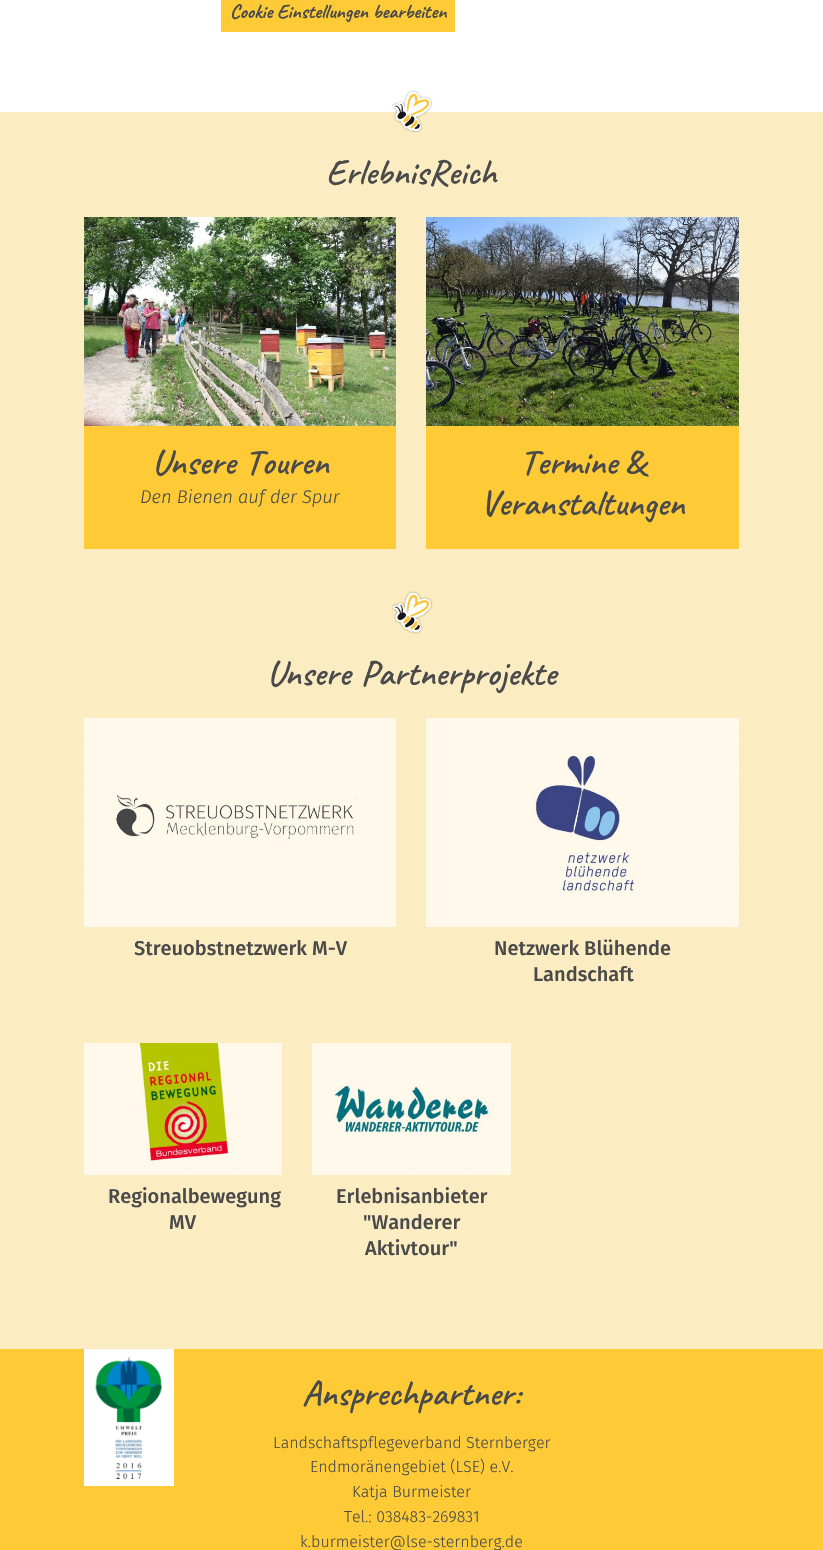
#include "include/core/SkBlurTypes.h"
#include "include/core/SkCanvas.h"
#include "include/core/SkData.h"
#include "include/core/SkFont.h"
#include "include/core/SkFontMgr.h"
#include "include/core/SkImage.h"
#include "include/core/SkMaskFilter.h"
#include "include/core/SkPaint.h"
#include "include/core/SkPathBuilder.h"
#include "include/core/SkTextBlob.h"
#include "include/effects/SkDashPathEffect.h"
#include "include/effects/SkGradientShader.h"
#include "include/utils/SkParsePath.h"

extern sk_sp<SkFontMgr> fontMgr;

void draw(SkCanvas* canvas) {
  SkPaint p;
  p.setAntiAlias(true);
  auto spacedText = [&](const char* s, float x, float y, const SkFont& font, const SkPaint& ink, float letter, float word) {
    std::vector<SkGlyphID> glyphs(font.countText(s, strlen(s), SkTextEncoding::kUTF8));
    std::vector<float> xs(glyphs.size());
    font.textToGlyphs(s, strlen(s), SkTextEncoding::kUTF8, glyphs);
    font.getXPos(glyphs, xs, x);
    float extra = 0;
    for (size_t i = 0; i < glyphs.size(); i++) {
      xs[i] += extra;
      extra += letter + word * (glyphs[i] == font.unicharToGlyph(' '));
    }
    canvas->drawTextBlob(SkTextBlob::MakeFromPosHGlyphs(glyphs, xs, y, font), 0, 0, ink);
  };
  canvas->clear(SK_ColorWHITE);
  p.setColor(SkColorSetRGB(254, 203, 55));
  canvas->drawRect(SkRect::MakeLTRB(221, 0, 455, 32), p);
  p.setColor(SkColorSetRGB(251, 237, 193));
  canvas->drawRect(SkRect::MakeLTRB(0, 112, 823, 1349), p);
  canvas->drawImageRect(SkImages::DeferredFromEncodedData(SkData::MakeFromFileName("images/1.png")), SkRect::MakeLTRB(391, 90, 433, 133), SkSamplingOptions());
  canvas->drawImageRect(SkImages::DeferredFromEncodedData(SkData::MakeFromFileName("images/2.png")), SkRect::MakeLTRB(84, 217, 396, 426), SkSamplingOptions());
  p.setColor(SkColorSetRGB(254, 203, 55));
  canvas->drawRect(SkRect::MakeLTRB(84, 426, 396, 549), p);
  canvas->drawImageRect(SkImages::DeferredFromEncodedData(SkData::MakeFromFileName("images/3.png")), SkRect::MakeLTRB(426, 217, 739, 426), SkSamplingOptions());
  canvas->drawRect(SkRect::MakeLTRB(426, 426, 739, 549), p);
  canvas->drawImageRect(SkImages::DeferredFromEncodedData(SkData::MakeFromFileName("images/4.png")), SkRect::MakeLTRB(391, 591, 433, 634), SkSamplingOptions());
  canvas->drawImageRect(SkImages::DeferredFromEncodedData(SkData::MakeFromFileName("images/5.png")), SkRect::MakeLTRB(84, 718, 396, 927), SkSamplingOptions());
  canvas->drawImageRect(SkImages::DeferredFromEncodedData(SkData::MakeFromFileName("images/6.png")), SkRect::MakeLTRB(426, 718, 739, 927), SkSamplingOptions());
  canvas->drawImageRect(SkImages::DeferredFromEncodedData(SkData::MakeFromFileName("images/7.png")), SkRect::MakeLTRB(84, 1043, 282, 1175), SkSamplingOptions());
  canvas->drawImageRect(SkImages::DeferredFromEncodedData(SkData::MakeFromFileName("images/8.png")), SkRect::MakeLTRB(312, 1043, 511, 1175), SkSamplingOptions());
  canvas->drawRect(SkRect::MakeLTRB(0, 1349, 823, 1550), p);
  canvas->drawImageRect(SkImages::DeferredFromEncodedData(SkData::MakeFromFileName("images/9.png")), SkRect::MakeLTRB(84, 1349, 174, 1486), SkSamplingOptions());
  SkFont font1(fontMgr->matchFamilyStyle("Caveat", SkFontStyle::Bold()), 20);
  font1.setSubpixel(true);
  p.setColor(SkColorSetRGB(74, 74, 74));
  canvas->drawString("Cookie Einstellungen bearbeiten", 230, 18, font1, p);
  SkFont font2(fontMgr->matchFamilyStyle("Caveat", SkFontStyle(600, SkFontStyle::kNormal_Width, SkFontStyle::kUpright_Slant)), 36);
  font2.setSubpixel(true);
  canvas->drawString("ErlebnisReich", 326, 184, font2, p);
  spacedText("Unsere Touren", 152, 474, font2, p, 0, 1);
  SkFont font3(fontMgr->matchFamilyStyle("Fira Sans", SkFontStyle(300, SkFontStyle::kNormal_Width, SkFontStyle::kItalic_Slant)), 18.4f);
  font3.setSubpixel(true);
  canvas->drawString("Den Bienen auf der Spur", 140, 503, font3, p);
  spacedText("Termine &", 520, 474, font2, p, 0, -1);
  canvas->drawString("Veranstaltungen", 480, 515, font2, p);
  spacedText("Unsere Partnerprojekte", 267, 685, font2, p, 0, 2);
  SkFont font4(fontMgr->matchFamilyStyle("Fira Sans", SkFontStyle(500, SkFontStyle::kNormal_Width, SkFontStyle::kUpright_Slant)), 20);
  font4.setSubpixel(true);
  canvas->drawString("Streuobstnetzwerk M-V", 134, 955, font4, p);
  canvas->drawString("Netzwerk Blühende", 494, 955, font4, p);
  canvas->drawString("Landschaft", 533, 981, font4, p);
  canvas->drawString("Regionalbewegung", 108, 1203, font4, p);
  canvas->drawString("MV", 169, 1229, font4, p);
  canvas->drawString("Erlebnisanbieter", 336, 1203, font4, p);
  canvas->drawString("\"Wanderer", 363, 1229, font4, p);
  canvas->drawString("Aktivtour\"", 365, 1255, font4, p);
  canvas->drawString("Ansprechpartner:", 302, 1405, font2, p);
  SkFont font5(fontMgr->matchFamilyStyle("Fira Sans", SkFontStyle(300, SkFontStyle::kNormal_Width, SkFontStyle::kUpright_Slant)), 16);
  font5.setSubpixel(true);
  canvas->drawString("Landschaftspflegeverband Sternberger", 273, 1448, font5, p);
  canvas->drawString("Endmoränengebiet (LSE) e.V.", 310, 1472, font5, p);
  canvas->drawString("Katja Burmeister", 352, 1497, font5, p);
  canvas->drawString("Tel.: 038483-269831", 344, 1522, font5, p);
  canvas->drawString("k.burmeister@lse-sternberg.de", 300, 1547, font5, p);
}
